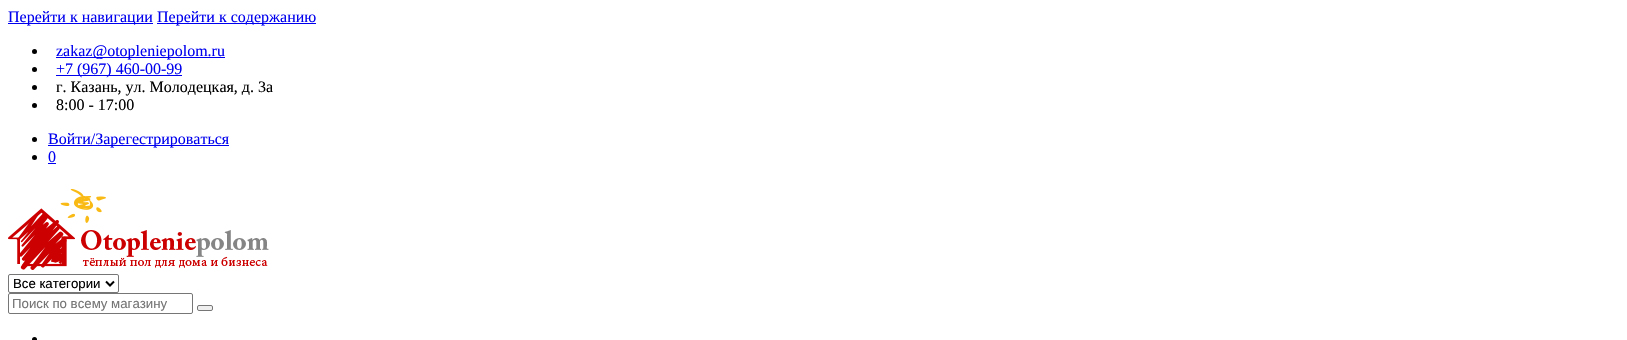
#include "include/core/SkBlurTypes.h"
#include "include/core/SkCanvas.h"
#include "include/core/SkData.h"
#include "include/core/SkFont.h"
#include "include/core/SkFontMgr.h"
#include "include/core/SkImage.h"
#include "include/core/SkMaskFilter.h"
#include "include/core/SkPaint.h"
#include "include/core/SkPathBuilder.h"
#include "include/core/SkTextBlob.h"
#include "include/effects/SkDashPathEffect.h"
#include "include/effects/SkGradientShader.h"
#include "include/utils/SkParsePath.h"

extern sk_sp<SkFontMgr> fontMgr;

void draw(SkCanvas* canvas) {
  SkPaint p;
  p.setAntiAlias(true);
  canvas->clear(SK_ColorWHITE);
  p.setColor(SkColorSetRGB(0, 0, 238));
  canvas->drawRect(SkRect::MakeLTRB(8, 23, 153, 24), p);
  canvas->drawRect(SkRect::MakeLTRB(157, 23, 316, 24), p);
  p.setColor(SK_ColorBLACK);
  canvas->drawCircle(34.5f, 51.5f, 2.5f, p);
  p.setColor(SkColorSetRGB(0, 0, 238));
  canvas->drawRect(SkRect::MakeLTRB(56, 57, 225, 58), p);
  p.setColor(SK_ColorBLACK);
  canvas->drawCircle(34.5f, 69.5f, 2.5f, p);
  p.setColor(SkColorSetRGB(0, 0, 238));
  canvas->drawRect(SkRect::MakeLTRB(56, 75, 182, 76), p);
  p.setColor(SK_ColorBLACK);
  canvas->drawCircle(34.5f, 87.5f, 2.5f, p);
  canvas->drawCircle(34.5f, 105.5f, 2.5f, p);
  canvas->drawCircle(34.5f, 139.5f, 2.5f, p);
  p.setColor(SkColorSetRGB(0, 0, 238));
  canvas->drawRect(SkRect::MakeLTRB(48, 145, 229, 146), p);
  p.setColor(SK_ColorBLACK);
  canvas->drawCircle(34.5f, 157.5f, 2.5f, p);
  p.setColor(SkColorSetRGB(0, 0, 238));
  canvas->drawRect(SkRect::MakeLTRB(48, 163, 56, 164), p);
  canvas->drawImageRect(SkImages::DeferredFromEncodedData(SkData::MakeFromFileName("images/1.png")), SkRect::MakeLTRB(8, 189, 269, 270), SkSamplingOptions());
  p.setStyle(SkPaint::kStroke_Style);
  p.setStrokeWidth(1);
  p.setColor(SkColorSetRGB(118, 118, 118));
  canvas->drawRoundRect(SkRect::MakeLTRB(8.5f, 274.5f, 118.5f, 292.5f), 1.5f, 1.5f, p);
  p.setStrokeWidth(2);
  p.setColor(SK_ColorBLACK);
  canvas->drawPath(SkPathBuilder().moveTo(106, 281.5f).lineTo(110, 285.5f).lineTo(114, 281.5f).detach(), p);
  p.setStrokeWidth(1);
  p.setColor(SkColorSetRGB(118, 118, 118));
  canvas->drawRoundRect(SkRect::MakeLTRB(8.5f, 293.5f, 192.5f, 313.5f), 1.5f, 1.5f, p);
  p.setStyle(SkPaint::kFill_Style);
  p.setColor(SkColorSetRGB(239, 239, 239));
  canvas->drawRoundRect(SkRect::MakeLTRB(197.5f, 305.5f, 212.5f, 310.5f), 1.5f, 1.5f, p);
  p.setStyle(SkPaint::kStroke_Style);
  p.setColor(SkColorSetRGB(118, 118, 118));
  canvas->drawRoundRect(SkRect::MakeLTRB(197.5f, 305.5f, 212.5f, 310.5f), 1.5f, 1.5f, p);
  p.setStyle(SkPaint::kFill_Style);
  p.setColor(SK_ColorBLACK);
  canvas->drawCircle(34.5f, 339.5f, 2.5f, p);
  SkFont font1(fontMgr->matchFamilyStyle("Liberation Serif", SkFontStyle::Normal()), 16);
  font1.setSubpixel(true);
  p.setColor(SkColorSetRGB(0, 0, 238));
  canvas->drawString("Перейти к навигации", 8, 22, font1, p);
  canvas->drawString("Перейти к содержанию", 157, 22, font1, p);
  canvas->drawString("zakaz@otopleniepolom.ru", 56, 56, font1, p);
  canvas->drawString("+7 (967) 460-00-99", 56, 74, font1, p);
  p.setColor(SK_ColorBLACK);
  canvas->drawString("г. Казань, ул. Молодецкая, д. 3а", 56, 92, font1, p);
  canvas->drawString("8:00 - 17:00", 56, 110, font1, p);
  p.setColor(SkColorSetRGB(0, 0, 238));
  canvas->drawString("Войти/Зарегестрироваться", 48, 144, font1, p);
  canvas->drawString("0", 48, 162, font1, p);
  SkFont font2(fontMgr->matchFamilyStyle("Liberation Sans", SkFontStyle::Normal()), 13.25f);
  font2.setSubpixel(true);
  p.setColor(SK_ColorBLACK);
  canvas->drawString("Все категории", 13, 288, font2, p);
  p.setColor(SkColorSetRGB(117, 117, 117));
  canvas->drawString("Поиск по всему магазину", 12, 308, font2, p);
}
